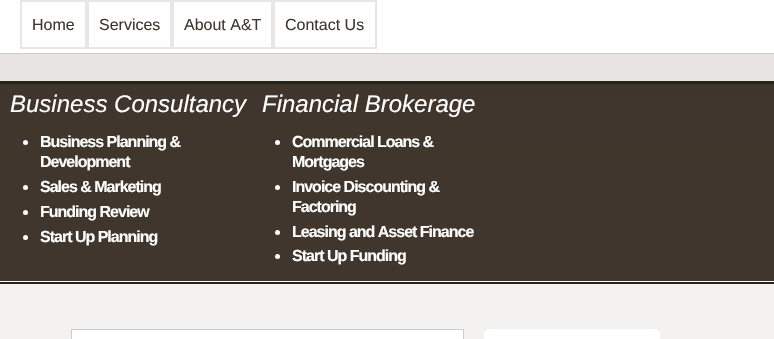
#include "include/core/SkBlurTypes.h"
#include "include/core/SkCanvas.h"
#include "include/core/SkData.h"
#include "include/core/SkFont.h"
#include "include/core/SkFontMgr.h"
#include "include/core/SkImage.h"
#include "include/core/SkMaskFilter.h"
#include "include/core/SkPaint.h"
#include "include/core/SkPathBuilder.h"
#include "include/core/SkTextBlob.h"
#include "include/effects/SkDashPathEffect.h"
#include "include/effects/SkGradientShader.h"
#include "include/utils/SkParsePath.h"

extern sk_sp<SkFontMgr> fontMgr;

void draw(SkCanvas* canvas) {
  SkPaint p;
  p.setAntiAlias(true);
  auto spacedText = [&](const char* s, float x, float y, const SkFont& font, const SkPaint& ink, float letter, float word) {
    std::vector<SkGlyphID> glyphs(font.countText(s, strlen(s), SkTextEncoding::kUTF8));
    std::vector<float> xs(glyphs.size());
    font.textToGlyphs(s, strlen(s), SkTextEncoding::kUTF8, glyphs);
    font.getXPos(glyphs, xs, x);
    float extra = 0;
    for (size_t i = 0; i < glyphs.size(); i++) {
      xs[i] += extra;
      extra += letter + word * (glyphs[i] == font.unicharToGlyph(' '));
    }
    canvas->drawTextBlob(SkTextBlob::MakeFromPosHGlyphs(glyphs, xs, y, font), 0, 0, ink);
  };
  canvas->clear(SK_ColorWHITE);
  p.setStyle(SkPaint::kStroke_Style);
  p.setStrokeWidth(2);
  p.setColor(SkColorSetRGB(234, 230, 230));
  canvas->drawRect(SkRect::MakeLTRB(21, 1, 86, 48), p);
  canvas->drawRect(SkRect::MakeLTRB(88, 1, 171, 48), p);
  canvas->drawRect(SkRect::MakeLTRB(173, 1, 272, 48), p);
  canvas->drawRect(SkRect::MakeLTRB(274, 1, 376, 48), p);
  p.setStyle(SkPaint::kFill_Style);
  p.setColor(SkColorSetRGB(232, 228, 225));
  canvas->drawRect(SkRect::MakeLTRB(0, 54, 774, 81), p);
  p.setColor(SkColorSetRGB(204, 204, 204));
  canvas->drawRect(SkRect::MakeLTRB(0, 53, 774, 54), p);
  canvas->drawImageRect(SkImages::DeferredFromEncodedData(SkData::MakeFromFileName("images/1.png")), SkRect::MakeLTRB(0, 81, 774, 329), SkSamplingOptions());
  p.setColor(SK_ColorWHITE);
  canvas->drawCircle(25.5f, 142.5f, 2.5f, p);
  canvas->drawCircle(25.5f, 187.5f, 2.5f, p);
  canvas->drawCircle(25.5f, 212.5f, 2.5f, p);
  canvas->drawCircle(25.5f, 237.5f, 2.5f, p);
  canvas->drawCircle(277.5f, 142.5f, 2.5f, p);
  canvas->drawCircle(277.5f, 187.5f, 2.5f, p);
  canvas->drawCircle(277.5f, 232.5f, 2.5f, p);
  canvas->drawCircle(277.5f, 256.5f, 2.5f, p);
  p.setColor(SkColorSetRGB(244, 242, 241));
  canvas->drawRect(SkRect::MakeLTRB(0, 329, 774, 339), p);
  p.setColor(SK_ColorWHITE);
  canvas->drawRect(SkRect::MakeLTRB(71.5f, 329.5f, 463.5f, 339.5f), p);
  p.setStyle(SkPaint::kStroke_Style);
  p.setStrokeWidth(1);
  p.setColor(SkColorSetRGB(204, 204, 204));
  canvas->drawRect(SkRect::MakeLTRB(71.5f, 329.5f, 463.5f, 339.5f), p);
  p.setStyle(SkPaint::kFill_Style);
  p.setColor(SK_ColorWHITE);
  canvas->drawRect(SkRect::MakeLTRB(489, 329, 655, 330), p);
  p.setColor(SkColorSetRGB(249, 248, 248));
  canvas->drawRect(SkRect::MakeLTRB(655, 329, 657, 330), p);
  canvas->drawRect(SkRect::MakeLTRB(487, 329, 489, 330), p);
  p.setColor(SK_ColorWHITE);
  canvas->drawRect(SkRect::MakeLTRB(487, 330, 657, 331), p);
  p.setColor(SkColorSetRGB(249, 248, 248));
  canvas->drawRect(SkRect::MakeLTRB(657, 330, 658, 331), p);
  canvas->drawRect(SkRect::MakeLTRB(486, 330, 487, 331), p);
  p.setColor(SK_ColorWHITE);
  canvas->drawRect(SkRect::MakeLTRB(486, 331, 658, 332), p);
  p.setColor(SkColorSetRGB(249, 248, 248));
  canvas->drawRect(SkRect::MakeLTRB(658, 331, 659, 332), p);
  canvas->drawRect(SkRect::MakeLTRB(485, 331, 486, 332), p);
  p.setColor(SK_ColorWHITE);
  canvas->drawRect(SkRect::MakeLTRB(485, 332, 659, 334), p);
  p.setColor(SkColorSetRGB(249, 248, 248));
  canvas->drawRect(SkRect::MakeLTRB(659, 332, 660, 334), p);
  canvas->drawRect(SkRect::MakeLTRB(484, 332, 485, 334), p);
  p.setColor(SK_ColorWHITE);
  canvas->drawRect(SkRect::MakeLTRB(484, 334, 660, 339), p);
  SkFont font1(fontMgr->matchFamilyStyle("Liberation Sans", SkFontStyle::Normal()), 16);
  font1.setSubpixel(true);
  p.setColor(SkColorSetRGB(64, 54, 45));
  canvas->drawString("Home", 32, 30, font1, p);
  canvas->drawString("Services", 99, 30, font1, p);
  canvas->drawString("About A&T", 184, 30, font1, p);
  canvas->drawString("Contact Us", 285, 30, font1, p);
  SkFont font2(fontMgr->matchFamilyStyle("Liberation Sans", SkFontStyle::Italic()), 24);
  font2.setSubpixel(true);
  p.setColor(SK_ColorWHITE);
  canvas->drawString("Business Consultancy", 10, 112, font2, p);
  SkFont font3(fontMgr->matchFamilyStyle("Liberation Sans", SkFontStyle::Bold()), 16);
  font3.setSubpixel(true);
  spacedText("Business Planning &", 40, 147, font3, p, -1, 0);
  spacedText("Development", 40, 167, font3, p, -1, 0);
  spacedText("Sales & Marketing", 40, 192, font3, p, -1, 0);
  spacedText("Funding Review", 40, 217, font3, p, -1, 0);
  spacedText("Start Up Planning", 40, 242, font3, p, -1, 0);
  canvas->drawString("Financial Brokerage", 262, 112, font2, p);
  spacedText("Commercial Loans &", 292, 147, font3, p, -1, 0);
  spacedText("Mortgages", 292, 167, font3, p, -1, 0);
  spacedText("Invoice Discounting &", 292, 192, font3, p, -1, 0);
  spacedText("Factoring", 292, 212, font3, p, -1, 0);
  spacedText("Leasing and Asset Finance", 292, 237, font3, p, -1, 0);
  spacedText("Start Up Funding", 292, 261, font3, p, -1, 0);
}
